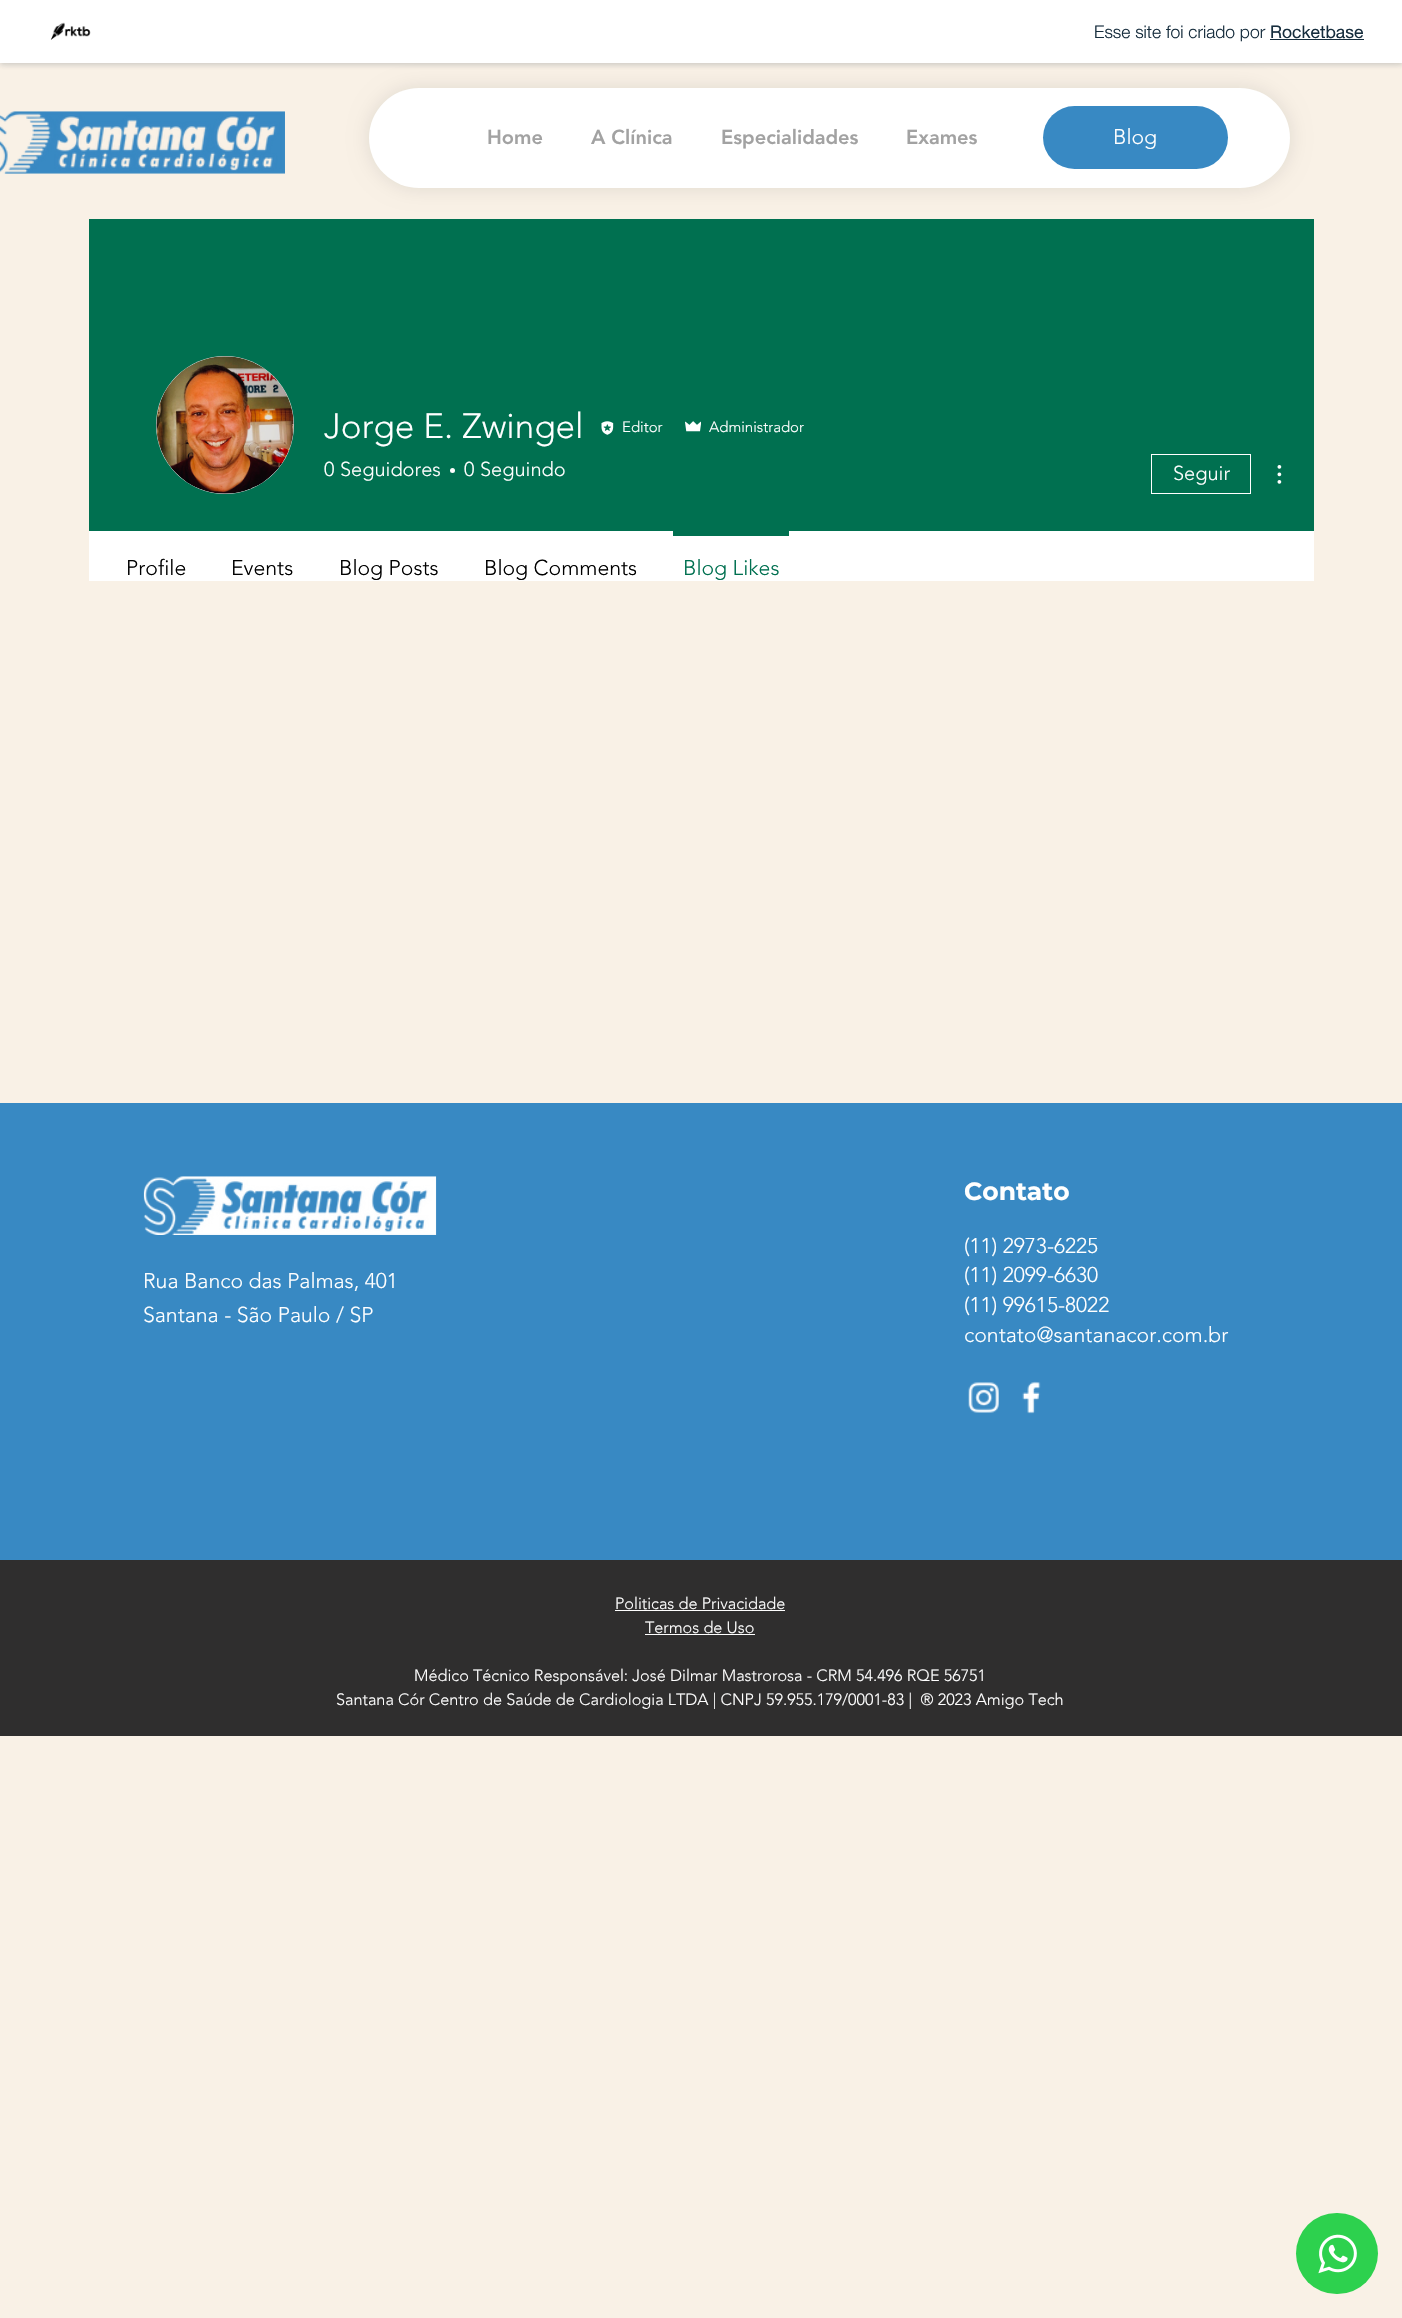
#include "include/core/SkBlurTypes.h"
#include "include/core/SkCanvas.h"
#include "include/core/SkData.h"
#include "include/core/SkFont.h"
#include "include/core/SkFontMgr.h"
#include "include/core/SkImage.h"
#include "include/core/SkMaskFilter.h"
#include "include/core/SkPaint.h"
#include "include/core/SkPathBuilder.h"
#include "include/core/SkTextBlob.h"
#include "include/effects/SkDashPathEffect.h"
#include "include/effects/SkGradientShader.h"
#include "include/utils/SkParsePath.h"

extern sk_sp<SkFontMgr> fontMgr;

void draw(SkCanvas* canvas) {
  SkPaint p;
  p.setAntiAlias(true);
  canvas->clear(SkColorSetRGB(249, 241, 230));
  p.setColor(SkColorSetARGB(31, 22, 45, 61));
  p.setMaskFilter(SkMaskFilter::MakeBlur(kNormal_SkBlurStyle, 4));
  canvas->drawRect(SkRect::MakeLTRB(0, 0, 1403, 63), p);
  p.setMaskFilter(nullptr);
  p.setMaskFilter(SkMaskFilter::MakeBlur(kNormal_SkBlurStyle, 2.5f));
  canvas->drawRect(SkRect::MakeLTRB(0, 3, 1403, 65), p);
  p.setMaskFilter(nullptr);
  p.setColor(SkColorSetARGB(26, 0, 0, 0));
  p.setMaskFilter(SkMaskFilter::MakeBlur(kNormal_SkBlurStyle, 10));
  canvas->drawRoundRect(SkRect::MakeLTRB(369, 88, 1290, 188), 50, 50, p);
  p.setMaskFilter(nullptr);
  p.setColor(SK_ColorWHITE);
  canvas->drawRect(SkRect::MakeLTRB(0, 0, 1402, 63), p);
  canvas->drawImageRect(SkImages::DeferredFromEncodedData(SkData::MakeFromFileName("images/1.png")), SkRect::MakeLTRB(50, 22, 91, 40), SkSamplingOptions());
  p.setColor(SkColorSetRGB(22, 45, 61));
  canvas->drawRect(SkRect::MakeLTRB(1270, 39, 1364, 40), p);
  canvas->drawImageRect(SkImages::DeferredFromEncodedData(SkData::MakeFromFileName("images/2.png")), SkRect::MakeLTRB(0, 111, 285, 174), SkSamplingOptions());
  p.setColor(SK_ColorWHITE);
  canvas->drawRoundRect(SkRect::MakeLTRB(369, 88, 1290, 188), 50, 50, p);
  p.setColor(SkColorSetRGB(56, 137, 195));
  canvas->drawRoundRect(SkRect::MakeLTRB(1043, 106, 1228, 169), 31.5f, 31.5f, p);
  p.setColor(SkColorSetRGB(0, 112, 80));
  canvas->drawRect(SkRect::MakeLTRB(89, 219, 1314, 531), p);
  p.setColor(SkColorSetRGB(216, 216, 216));
  canvas->drawCircle(225, 425, 69, p);
  canvas->drawImageRect(SkImages::DeferredFromEncodedData(SkData::MakeFromFileName("images/3.png")), SkRect::MakeLTRB(156, 356, 294, 494), SkSamplingOptions());
  canvas->drawImageRect(SkImages::DeferredFromEncodedData(SkData::MakeFromFileName("images/4.png")), SkRect::MakeLTRB(601, 421, 614, 435), SkSamplingOptions());
  canvas->drawImageRect(SkImages::DeferredFromEncodedData(SkData::MakeFromFileName("images/5.png")), SkRect::MakeLTRB(685, 421, 701, 432), SkSamplingOptions());
  p.setColor(SK_ColorWHITE);
  canvas->drawCircle(452.5f, 470.5f, 2.5f, p);
  p.setStyle(SkPaint::kStroke_Style);
  p.setStrokeWidth(1);
  canvas->drawRect(SkRect::MakeLTRB(1151.5f, 454.5f, 1250.5f, 493.5f), p);
  canvas->drawImageRect(SkImages::DeferredFromEncodedData(SkData::MakeFromFileName("images/6.png")), SkRect::MakeLTRB(1277, 465, 1282, 484), SkSamplingOptions());
  p.setStyle(SkPaint::kFill_Style);
  canvas->drawRect(SkRect::MakeLTRB(89, 531, 1314, 581), p);
  p.setColor(SkColorSetRGB(0, 112, 80));
  canvas->drawRect(SkRect::MakeLTRB(673, 531, 789, 536), p);
  p.setColor(SkColorSetRGB(56, 137, 195));
  canvas->drawRect(SkRect::MakeLTRB(0, 1103, 1402, 1560), p);
  canvas->drawImageRect(SkImages::DeferredFromEncodedData(SkData::MakeFromFileName("images/7.png")), SkRect::MakeLTRB(143, 1176, 437, 1235), SkSamplingOptions());
  canvas->drawImageRect(SkImages::DeferredFromEncodedData(SkData::MakeFromFileName("images/8.png")), SkRect::MakeLTRB(968, 1382, 999, 1413), SkSamplingOptions());
  canvas->drawImageRect(SkImages::DeferredFromEncodedData(SkData::MakeFromFileName("images/9.png")), SkRect::MakeLTRB(1022, 1381, 1041, 1414), SkSamplingOptions());
  p.setColor(SkColorSetRGB(47, 46, 46));
  canvas->drawRect(SkRect::MakeLTRB(0, 1560, 1402, 1736), p);
  p.setColor(SK_ColorWHITE);
  canvas->drawRect(SkRect::MakeLTRB(615, 1610, 785, 1611), p);
  canvas->drawRect(SkRect::MakeLTRB(645, 1634, 755, 1635), p);
  p.setColor(SkColorSetRGB(45, 209, 78));
  canvas->drawRoundRect(SkRect::MakeLTRB(1296, 2213, 1378, 2294), 40.5f, 40.5f, p);
  canvas->drawImageRect(SkImages::DeferredFromEncodedData(SkData::MakeFromFileName("images/10.png")), SkRect::MakeLTRB(1318, 2234, 1357, 2274), SkSamplingOptions());
  SkFont font1(fontMgr->matchFamilyStyle("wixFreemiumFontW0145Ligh", SkFontStyle(300, SkFontStyle::kNormal_Width, SkFontStyle::kUpright_Slant)), 17.5f);
  font1.setSubpixel(true);
  p.setColor(SkColorSetRGB(22, 45, 61));
  canvas->drawString("Esse site foi criado por", 1094, 38, font1, p);
  SkFont font2(fontMgr->matchFamilyStyle("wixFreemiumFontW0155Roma", SkFontStyle::Normal()), 17.5f);
  font2.setSubpixel(true);
  canvas->drawString("Rocketbase", 1270, 38, font2, p);
  SkFont font3(fontMgr->matchFamilyStyle("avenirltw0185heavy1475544", SkFontStyle(900, SkFontStyle::kNormal_Width, SkFontStyle::kUpright_Slant)), 20);
  font3.setSubpixel(true);
  p.setColor(SkColorSetRGB(162, 162, 162));
  canvas->drawString("Home", 487, 144, font3, p);
  canvas->drawString("A Clínica", 591, 144, font3, p);
  canvas->drawString("Especialidades", 721, 144, font3, p);
  canvas->drawString("Exames", 906, 144, font3, p);
  SkFont font4(fontMgr->matchFamilyStyle("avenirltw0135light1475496", SkFontStyle(300, SkFontStyle::kNormal_Width, SkFontStyle::kUpright_Slant)), 21.25f);
  font4.setSubpixel(true);
  p.setColor(SK_ColorWHITE);
  canvas->drawString("Blog", 1113, 144, font4, p);
  SkFont font5(fontMgr->matchFamilyStyle("avenirltw0135light1475496", SkFontStyle(300, SkFontStyle::kNormal_Width, SkFontStyle::kUpright_Slant)), 35);
  font5.setSubpixel(true);
  canvas->drawString("Jorge E. Zwingel", 324, 438, font5, p);
  SkFont font6(fontMgr->matchFamilyStyle("avenirltw0135light1475496", SkFontStyle(300, SkFontStyle::kNormal_Width, SkFontStyle::kUpright_Slant)), 15);
  font6.setSubpixel(true);
  canvas->drawString("Editor", 622, 432, font6, p);
  canvas->drawString("Administrador", 709, 432, font6, p);
  SkFont font7(fontMgr->matchFamilyStyle("avenirltw0135light1475496", SkFontStyle(300, SkFontStyle::kNormal_Width, SkFontStyle::kUpright_Slant)), 20);
  font7.setSubpixel(true);
  canvas->drawString("0", 324, 476, font7, p);
  canvas->drawString("Seguidores", 340, 476, font7, p);
  canvas->drawString("0", 464, 476, font7, p);
  canvas->drawString("Seguindo", 480, 476, font7, p);
  canvas->drawString("Seguir", 1173, 480, font7, p);
  p.setColor(SK_ColorBLACK);
  canvas->drawString("Profile", 126, 575, font4, p);
  canvas->drawString("Events", 231, 575, font4, p);
  canvas->drawString("Blog Posts", 339, 575, font4, p);
  canvas->drawString("Blog Comments", 484, 575, font4, p);
  p.setColor(SkColorSetRGB(0, 112, 80));
  canvas->drawString("Blog Likes", 683, 575, font4, p);
  p.setColor(SK_ColorWHITE);
  canvas->drawString("Rua Banco das Palmas, 401", 143, 1288, font4, p);
  canvas->drawString("Santana - São Paulo / SP", 143, 1322, font4, p);
  SkFont font8(fontMgr->matchFamilyStyle("Montserrat", SkFontStyle::Bold()), 25);
  font8.setSubpixel(true);
  canvas->drawString("Contato", 964, 1200, font8, p);
  canvas->drawString("(11) 2973-6225", 964, 1253, font4, p);
  canvas->drawString("(11) 2099-6630", 964, 1282, font4, p);
  canvas->drawString("(11) 99615-8022", 964, 1312, font4, p);
  canvas->drawString("contato@santanacor.com.br", 964, 1342, font4, p);
  SkFont font9(fontMgr->matchFamilyStyle("avenirltw0135light1475496", SkFontStyle(300, SkFontStyle::kNormal_Width, SkFontStyle::kUpright_Slant)), 16.25f);
  font9.setSubpixel(true);
  canvas->drawString("Politicas de Privacidade", 615, 1609, font9, p);
  canvas->drawString("Termos de Uso", 645, 1633, font9, p);
  canvas->drawString("Médico Técnico Responsável: José Dilmar Mastrorosa - CRM 54.496 RQE 56751", 414, 1681, font9, p);
  canvas->drawString("Santana Cór Centro de Saúde de Cardiologia LTDA | CNPJ 59.955.179/0001-83 |  ® 2023 Amigo Tech", 336, 1705, font9, p);
}
